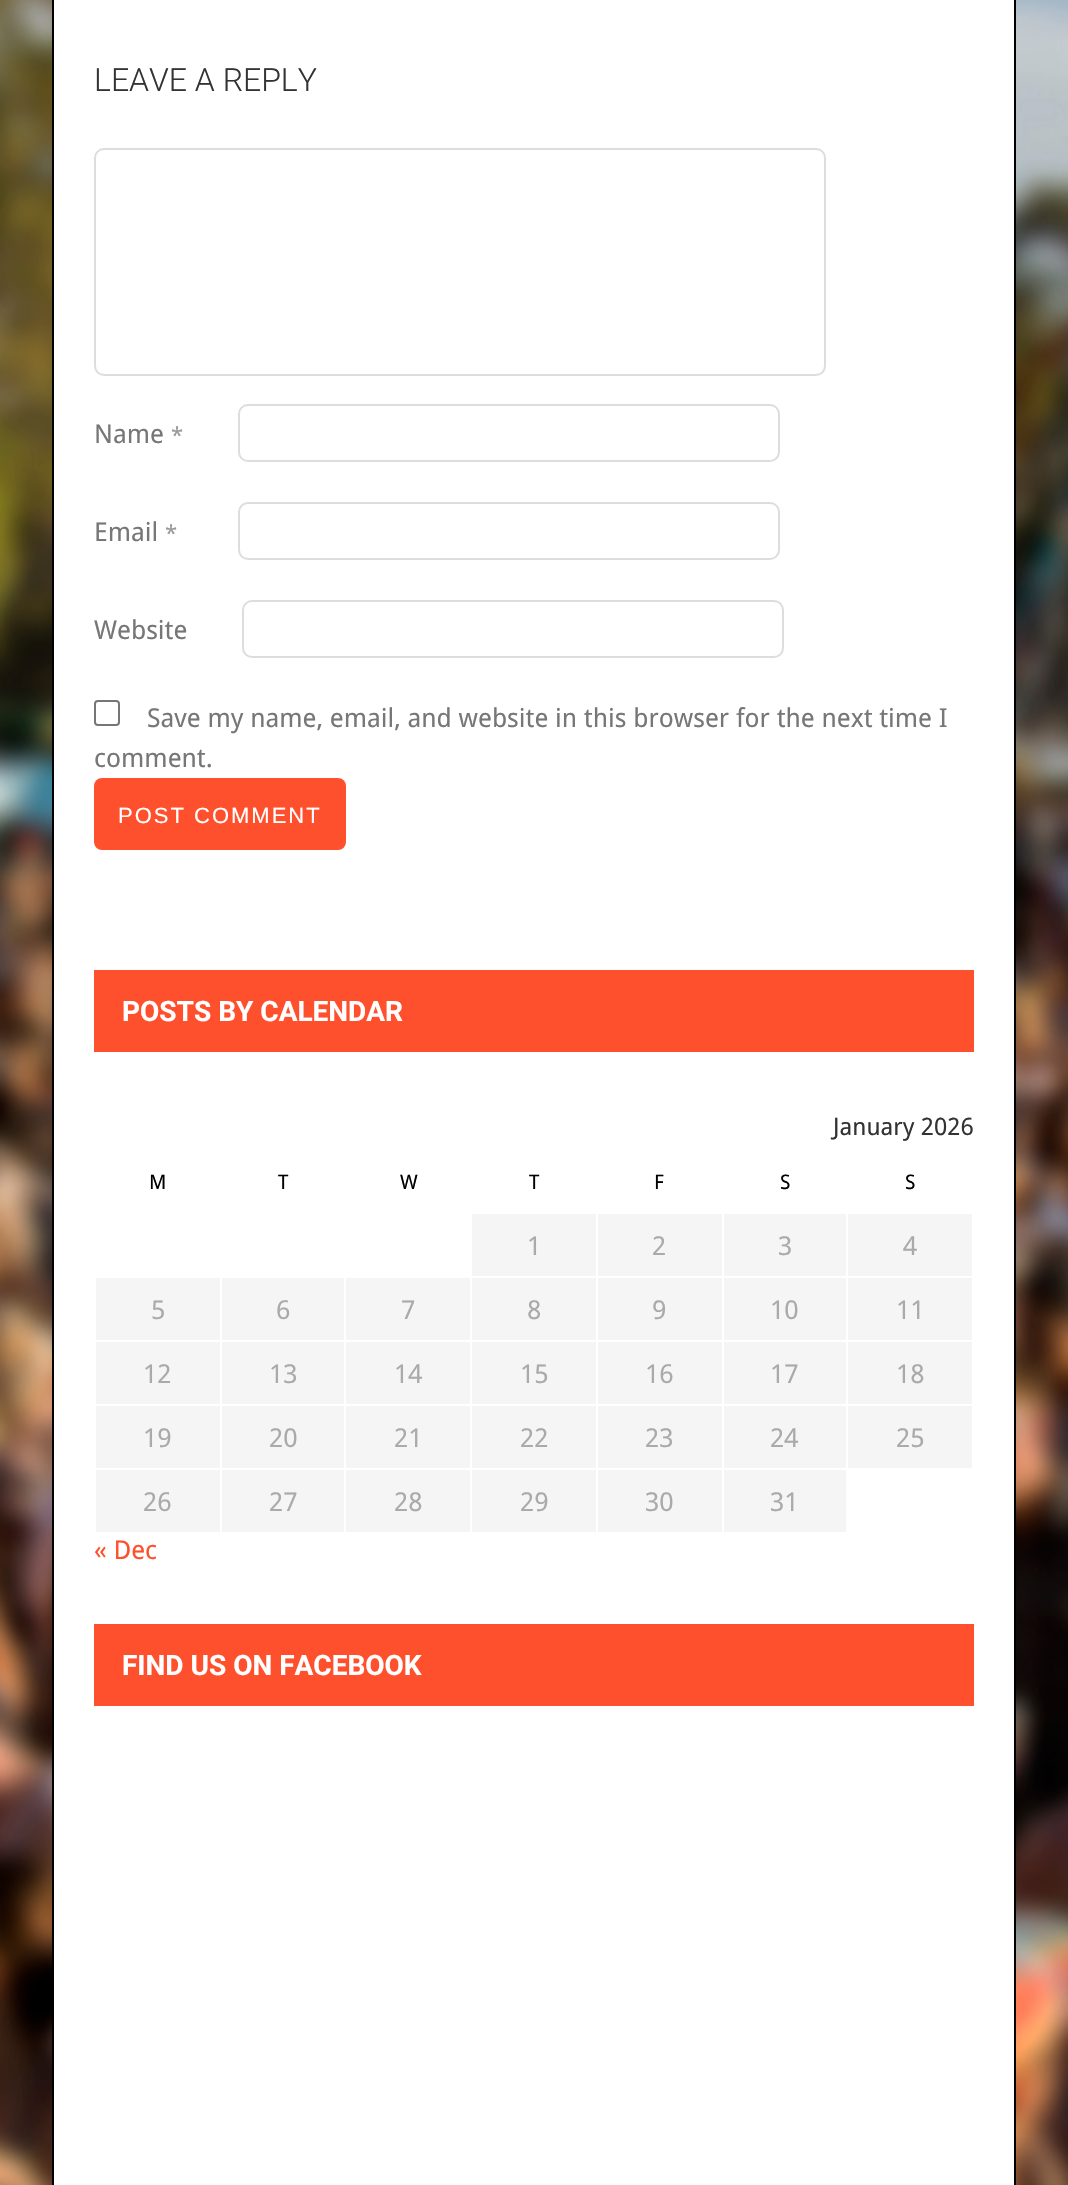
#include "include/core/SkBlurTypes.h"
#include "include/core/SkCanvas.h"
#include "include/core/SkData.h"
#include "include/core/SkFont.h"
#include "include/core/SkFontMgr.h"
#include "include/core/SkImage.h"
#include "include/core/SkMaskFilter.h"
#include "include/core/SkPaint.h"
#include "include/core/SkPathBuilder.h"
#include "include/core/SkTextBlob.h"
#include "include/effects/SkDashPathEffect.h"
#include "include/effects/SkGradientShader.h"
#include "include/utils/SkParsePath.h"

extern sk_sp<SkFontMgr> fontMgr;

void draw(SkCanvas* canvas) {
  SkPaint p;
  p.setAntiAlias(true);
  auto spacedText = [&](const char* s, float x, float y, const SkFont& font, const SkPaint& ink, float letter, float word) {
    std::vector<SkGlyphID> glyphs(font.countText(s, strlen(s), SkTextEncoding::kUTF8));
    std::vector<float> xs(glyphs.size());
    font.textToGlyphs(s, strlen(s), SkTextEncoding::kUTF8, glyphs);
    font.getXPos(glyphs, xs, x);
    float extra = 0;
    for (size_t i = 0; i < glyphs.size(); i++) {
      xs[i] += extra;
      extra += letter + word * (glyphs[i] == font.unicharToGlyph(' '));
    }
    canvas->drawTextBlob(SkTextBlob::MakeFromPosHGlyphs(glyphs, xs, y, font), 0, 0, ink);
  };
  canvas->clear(SK_ColorWHITE);
  canvas->drawImageRect(SkImages::DeferredFromEncodedData(SkData::MakeFromFileName("images/1.png")), SkRect::MakeLTRB(0, 0, 1068, 2185), SkSamplingOptions());
  p.setColor(SK_ColorWHITE);
  canvas->drawRect(SkRect::MakeLTRB(54, 0, 1014, 2185), p);
  p.setColor(SK_ColorBLACK);
  canvas->drawRect(SkRect::MakeLTRB(1014, 0, 1016, 2185), p);
  canvas->drawRect(SkRect::MakeLTRB(52, 0, 54, 2185), p);
  p.setStyle(SkPaint::kStroke_Style);
  p.setStrokeWidth(2);
  p.setColor(SkColorSetRGB(221, 221, 221));
  canvas->drawRoundRect(SkRect::MakeLTRB(95, 149, 825, 375), 9, 9, p);
  canvas->drawRoundRect(SkRect::MakeLTRB(239, 405, 779, 461), 9, 9, p);
  canvas->drawRoundRect(SkRect::MakeLTRB(239, 503, 779, 559), 9, 9, p);
  canvas->drawRoundRect(SkRect::MakeLTRB(243, 601, 783, 657), 9, 9, p);
  p.setColor(SkColorSetRGB(118, 118, 118));
  canvas->drawRoundRect(SkRect::MakeLTRB(95, 701, 119, 725), 3, 3, p);
  p.setStyle(SkPaint::kFill_Style);
  p.setColor(SkColorSetRGB(255, 80, 46));
  canvas->drawRoundRect(SkRect::MakeLTRB(94, 778, 346, 850), 8, 8, p);
  canvas->drawRect(SkRect::MakeLTRB(94, 970, 974, 1052), p);
  p.setColor(SkColorSetRGB(245, 245, 245));
  canvas->drawRect(SkRect::MakeLTRB(472, 1214, 596, 1276), p);
  canvas->drawRect(SkRect::MakeLTRB(598, 1214, 722, 1276), p);
  canvas->drawRect(SkRect::MakeLTRB(724, 1214, 846, 1276), p);
  canvas->drawRect(SkRect::MakeLTRB(848, 1214, 972, 1276), p);
  canvas->drawRect(SkRect::MakeLTRB(96, 1278, 220, 1340), p);
  canvas->drawRect(SkRect::MakeLTRB(222, 1278, 344, 1340), p);
  canvas->drawRect(SkRect::MakeLTRB(346, 1278, 470, 1340), p);
  canvas->drawRect(SkRect::MakeLTRB(472, 1278, 596, 1340), p);
  canvas->drawRect(SkRect::MakeLTRB(598, 1278, 722, 1340), p);
  canvas->drawRect(SkRect::MakeLTRB(724, 1278, 846, 1340), p);
  canvas->drawRect(SkRect::MakeLTRB(848, 1278, 972, 1340), p);
  canvas->drawRect(SkRect::MakeLTRB(96, 1342, 220, 1404), p);
  canvas->drawRect(SkRect::MakeLTRB(222, 1342, 344, 1404), p);
  canvas->drawRect(SkRect::MakeLTRB(346, 1342, 470, 1404), p);
  canvas->drawRect(SkRect::MakeLTRB(472, 1342, 596, 1404), p);
  canvas->drawRect(SkRect::MakeLTRB(598, 1342, 722, 1404), p);
  canvas->drawRect(SkRect::MakeLTRB(724, 1342, 846, 1404), p);
  canvas->drawRect(SkRect::MakeLTRB(848, 1342, 972, 1404), p);
  canvas->drawRect(SkRect::MakeLTRB(96, 1406, 220, 1468), p);
  canvas->drawRect(SkRect::MakeLTRB(222, 1406, 344, 1468), p);
  canvas->drawRect(SkRect::MakeLTRB(346, 1406, 470, 1468), p);
  canvas->drawRect(SkRect::MakeLTRB(472, 1406, 596, 1468), p);
  canvas->drawRect(SkRect::MakeLTRB(598, 1406, 722, 1468), p);
  canvas->drawRect(SkRect::MakeLTRB(724, 1406, 846, 1468), p);
  canvas->drawRect(SkRect::MakeLTRB(848, 1406, 972, 1468), p);
  canvas->drawRect(SkRect::MakeLTRB(96, 1470, 220, 1532), p);
  canvas->drawRect(SkRect::MakeLTRB(222, 1470, 344, 1532), p);
  canvas->drawRect(SkRect::MakeLTRB(346, 1470, 470, 1532), p);
  canvas->drawRect(SkRect::MakeLTRB(472, 1470, 596, 1532), p);
  canvas->drawRect(SkRect::MakeLTRB(598, 1470, 722, 1532), p);
  canvas->drawRect(SkRect::MakeLTRB(724, 1470, 846, 1532), p);
  p.setColor(SkColorSetRGB(255, 80, 46));
  canvas->drawRect(SkRect::MakeLTRB(94, 1624, 974, 1706), p);
  SkFont font1(fontMgr->matchFamilyStyle("Roboto", SkFontStyle(300, SkFontStyle::kNormal_Width, SkFontStyle::kUpright_Slant)), 32);
  font1.setSubpixel(true);
  p.setColor(SkColorSetRGB(51, 51, 51));
  canvas->drawString("LEAVE A REPLY", 94, 91, font1, p);
  SkFont font2(fontMgr->matchFamilyStyle("Droid Sans", SkFontStyle::Normal()), 26);
  font2.setSubpixel(true);
  p.setColor(SkColorSetRGB(119, 119, 119));
  canvas->drawString("Name", 94, 443, font2, p);
  SkFont font3(fontMgr->matchFamilyStyle("Droid Sans", SkFontStyle::Normal()), 22);
  font3.setSubpixel(true);
  p.setColor(SkColorSetRGB(153, 153, 153));
  canvas->drawString("*", 171, 443, font3, p);
  p.setColor(SkColorSetRGB(119, 119, 119));
  canvas->drawString("Email", 94, 541, font2, p);
  p.setColor(SkColorSetRGB(153, 153, 153));
  canvas->drawString("*", 165, 541, font3, p);
  p.setColor(SkColorSetRGB(119, 119, 119));
  canvas->drawString("Website", 94, 639, font2, p);
  canvas->drawString("Save my name, email, and website in this browser for the next time I", 147, 727, font2, p);
  canvas->drawString("comment.", 94, 767, font2, p);
  SkFont font4(fontMgr->matchFamilyStyle("Liberation Sans", SkFontStyle::Normal()), 22);
  font4.setSubpixel(true);
  p.setColor(SK_ColorWHITE);
  spacedText("POST COMMENT", 118, 823, font4, p, 2, 0);
  SkFont font5(fontMgr->matchFamilyStyle("Roboto", SkFontStyle::Bold()), 28);
  font5.setSubpixel(true);
  canvas->drawString("POSTS BY CALENDAR", 122, 1021, font5, p);
  SkFont font6(fontMgr->matchFamilyStyle("Droid Sans", SkFontStyle::Normal()), 24);
  font6.setSubpixel(true);
  p.setColor(SkColorSetRGB(51, 51, 51));
  canvas->drawString("January 2026", 833, 1135, font6, p);
  SkFont font7(fontMgr->matchFamilyStyle("Droid Sans", SkFontStyle::Normal()), 20);
  font7.setSubpixel(true);
  p.setColor(SK_ColorBLACK);
  canvas->drawString("M", 149, 1189, font7, p);
  canvas->drawString("T", 278, 1189, font7, p);
  canvas->drawString("W", 400, 1189, font7, p);
  canvas->drawString("T", 529, 1189, font7, p);
  canvas->drawString("F", 654, 1189, font7, p);
  canvas->drawString("S", 780, 1189, font7, p);
  canvas->drawString("S", 905, 1189, font7, p);
  p.setColor(SkColorSetRGB(170, 170, 170));
  canvas->drawString("1", 527, 1255, font2, p);
  canvas->drawString("2", 652, 1255, font2, p);
  canvas->drawString("3", 778, 1255, font2, p);
  canvas->drawString("4", 903, 1255, font2, p);
  canvas->drawString("5", 151, 1319, font2, p);
  canvas->drawString("6", 276, 1319, font2, p);
  canvas->drawString("7", 401, 1319, font2, p);
  canvas->drawString("8", 527, 1319, font2, p);
  canvas->drawString("9", 652, 1319, font2, p);
  canvas->drawString("10", 770, 1319, font2, p);
  canvas->drawString("11", 896, 1319, font2, p);
  canvas->drawString("12", 143, 1383, font2, p);
  canvas->drawString("13", 269, 1383, font2, p);
  canvas->drawString("14", 394, 1383, font2, p);
  canvas->drawString("15", 520, 1383, font2, p);
  canvas->drawString("16", 645, 1383, font2, p);
  canvas->drawString("17", 770, 1383, font2, p);
  canvas->drawString("18", 896, 1383, font2, p);
  canvas->drawString("19", 143, 1447, font2, p);
  canvas->drawString("20", 269, 1447, font2, p);
  canvas->drawString("21", 394, 1447, font2, p);
  canvas->drawString("22", 520, 1447, font2, p);
  canvas->drawString("23", 645, 1447, font2, p);
  canvas->drawString("24", 770, 1447, font2, p);
  canvas->drawString("25", 896, 1447, font2, p);
  canvas->drawString("26", 143, 1511, font2, p);
  canvas->drawString("27", 269, 1511, font2, p);
  canvas->drawString("28", 394, 1511, font2, p);
  canvas->drawString("29", 520, 1511, font2, p);
  canvas->drawString("30", 645, 1511, font2, p);
  canvas->drawString("31", 770, 1511, font2, p);
  p.setColor(SkColorSetRGB(255, 80, 46));
  canvas->drawString("« Dec", 94, 1559, font2, p);
  p.setColor(SK_ColorWHITE);
  canvas->drawString("FIND US ON FACEBOOK", 122, 1675, font5, p);
}
